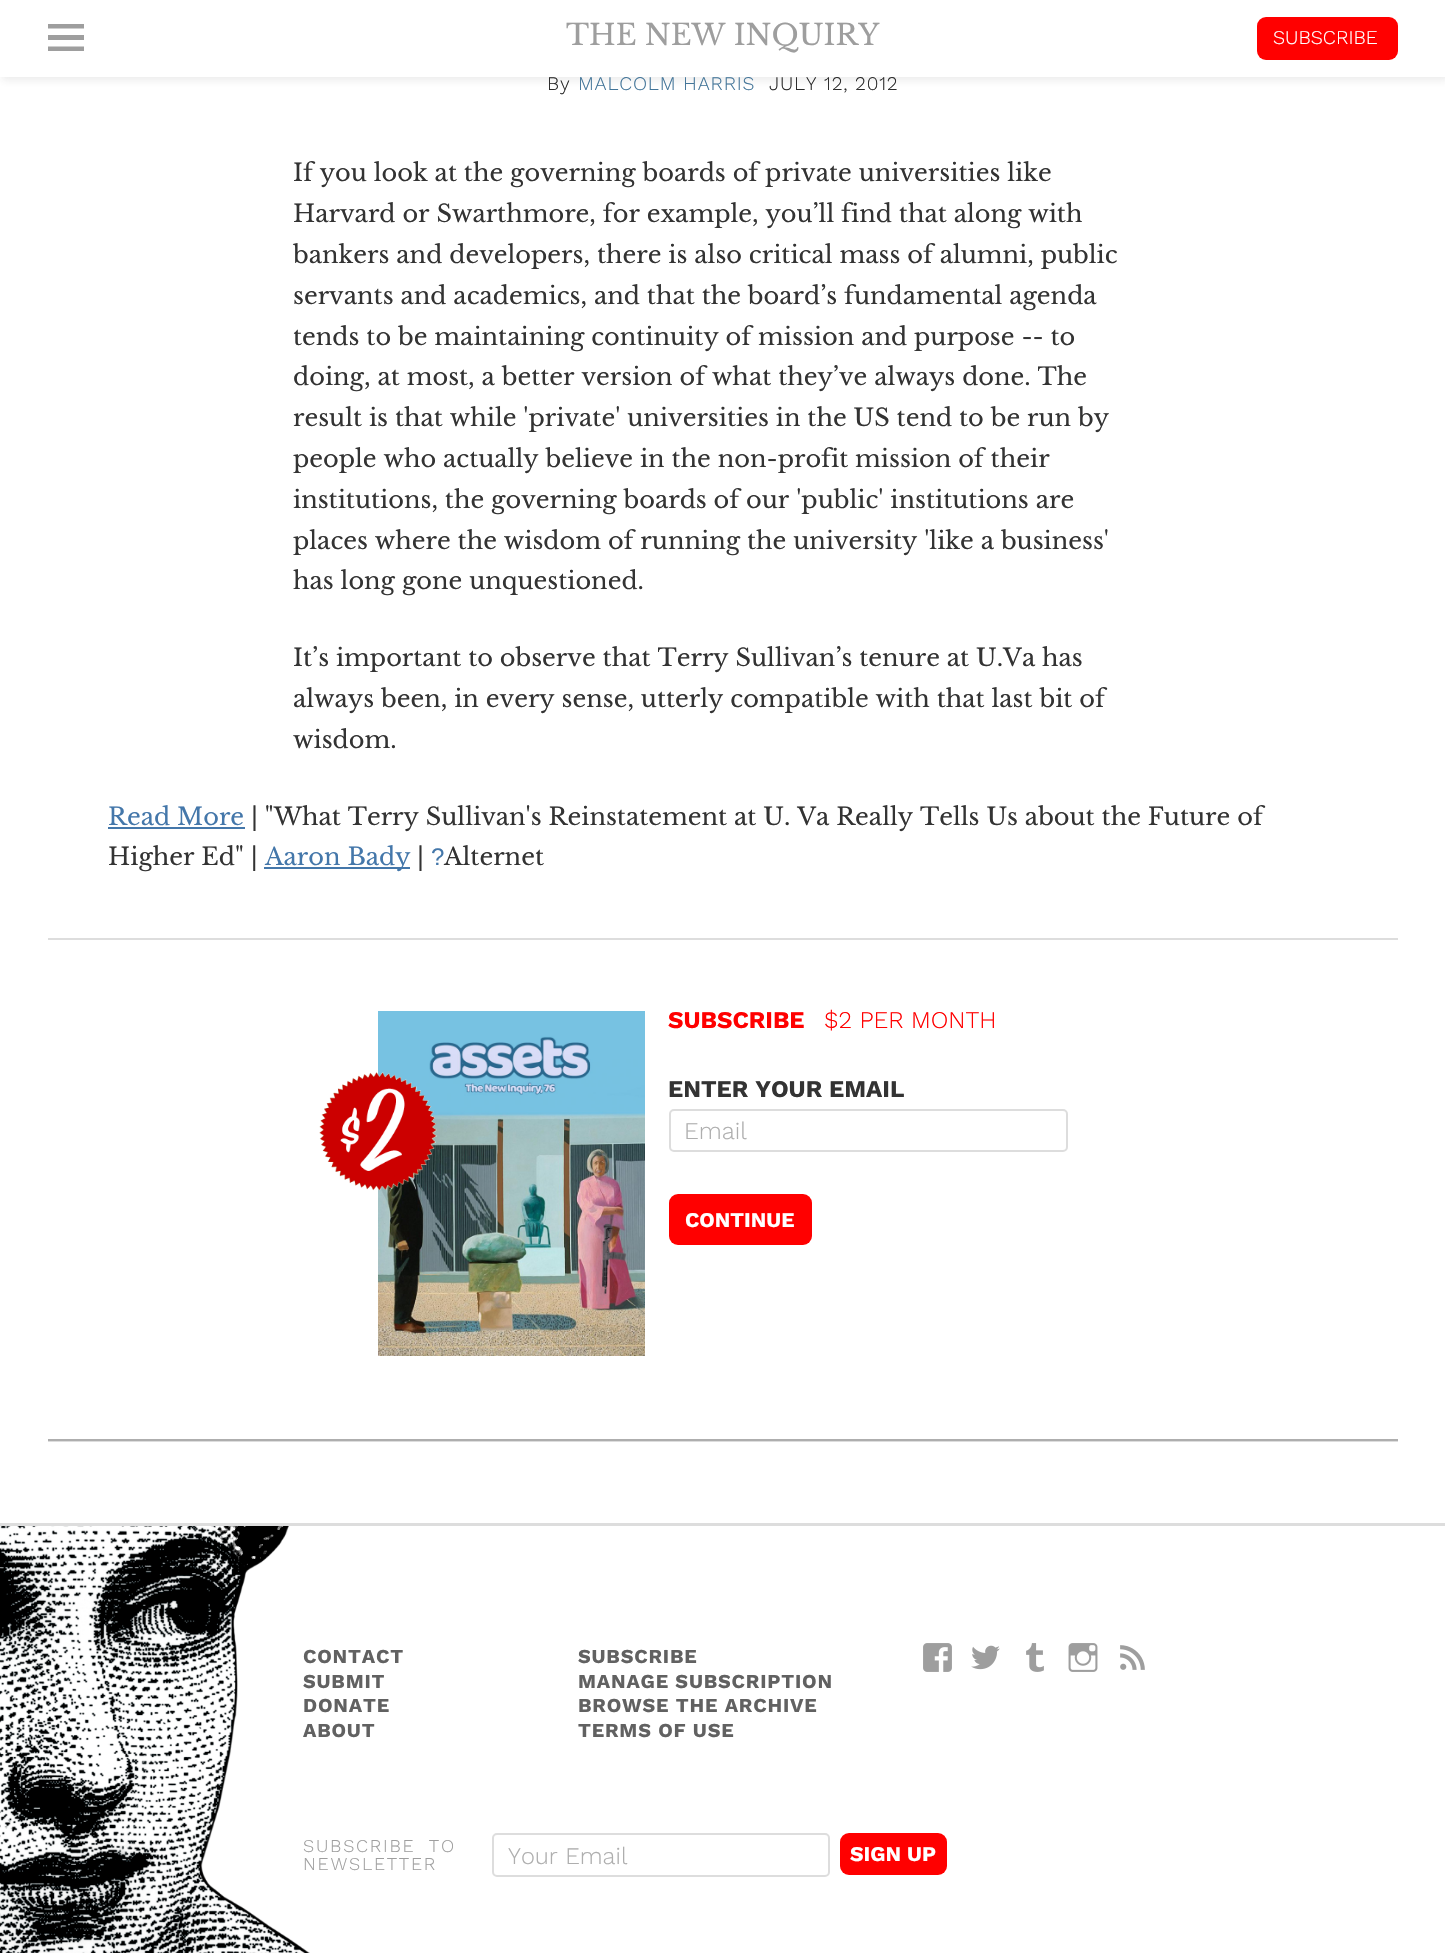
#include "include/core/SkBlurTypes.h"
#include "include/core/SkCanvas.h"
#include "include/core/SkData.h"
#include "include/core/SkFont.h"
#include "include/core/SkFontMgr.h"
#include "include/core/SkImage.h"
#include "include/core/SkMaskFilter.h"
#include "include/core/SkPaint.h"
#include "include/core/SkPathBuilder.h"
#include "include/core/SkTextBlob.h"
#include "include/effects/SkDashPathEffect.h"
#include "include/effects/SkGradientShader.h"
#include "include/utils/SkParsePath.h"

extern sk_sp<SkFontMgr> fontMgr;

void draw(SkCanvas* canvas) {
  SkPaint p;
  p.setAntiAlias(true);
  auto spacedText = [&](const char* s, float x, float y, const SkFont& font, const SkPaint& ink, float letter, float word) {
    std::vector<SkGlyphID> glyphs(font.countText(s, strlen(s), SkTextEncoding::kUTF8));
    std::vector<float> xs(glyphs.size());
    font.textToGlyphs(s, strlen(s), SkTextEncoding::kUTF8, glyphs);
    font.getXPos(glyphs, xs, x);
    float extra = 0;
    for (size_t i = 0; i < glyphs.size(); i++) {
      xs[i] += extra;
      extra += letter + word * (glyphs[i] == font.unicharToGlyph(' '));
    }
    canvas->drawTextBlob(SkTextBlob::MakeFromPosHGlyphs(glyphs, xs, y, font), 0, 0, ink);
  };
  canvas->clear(SK_ColorWHITE);
  p.setColor(SkColorSetARGB(26, 50, 50, 50));
  p.setMaskFilter(SkMaskFilter::MakeBlur(kNormal_SkBlurStyle, 4));
  canvas->drawRect(SkRect::MakeLTRB(2, 3, 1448, 80), p);
  p.setMaskFilter(nullptr);
  p.setColor(SK_ColorWHITE);
  canvas->drawRect(SkRect::MakeLTRB(0, 0, 1445, 77), p);
  p.setColor(SkColorSetRGB(158, 158, 158));
  canvas->drawPath(SkPathBuilder().moveTo(48, 51).lineTo(48, 46.5f).lineTo(84, 46.5f).lineTo(84, 51).close().moveTo(48, 24).lineTo(84, 24).lineTo(84, 28.5f).lineTo(48, 28.5f).close().moveTo(48, 40).lineTo(48, 35).lineTo(84, 35).lineTo(84, 40).close().detach(), p);
  p.setColor(SkColorSetRGB(255, 0, 0));
  canvas->drawRoundRect(SkRect::MakeLTRB(1257, 17, 1398, 60), 9, 9, p);
  p.setColor(SkColorSetRGB(68, 119, 170));
  canvas->drawRect(SkRect::MakeLTRB(108, 827, 245, 829), p);
  canvas->drawRect(SkRect::MakeLTRB(264, 867, 410, 869), p);
  p.setColor(SkColorSetRGB(221, 221, 221));
  canvas->drawRect(SkRect::MakeLTRB(48, 938, 1398, 940), p);
  canvas->drawRect(SkRect::MakeLTRB(48, 1441, 1398, 1442), p);
  p.setColor(SkColorSetRGB(174, 174, 174));
  canvas->drawRect(SkRect::MakeLTRB(48, 1439, 1398, 1441), p);
  canvas->drawImageRect(SkImages::DeferredFromEncodedData(SkData::MakeFromFileName("images/1.png")), SkRect::MakeLTRB(378, 1011, 645, 1356), SkSamplingOptions());
  canvas->drawImageRect(SkImages::DeferredFromEncodedData(SkData::MakeFromFileName("images/2.png")), SkRect::MakeLTRB(319, 1072, 437, 1191), SkSamplingOptions());
  p.setStyle(SkPaint::kStroke_Style);
  p.setStrokeWidth(2);
  p.setColor(SkColorSetRGB(221, 221, 221));
  canvas->drawRoundRect(SkRect::MakeLTRB(670, 1110, 1067, 1151), 4, 4, p);
  p.setStyle(SkPaint::kFill_Style);
  p.setColor(SkColorSetRGB(255, 0, 0));
  canvas->drawRoundRect(SkRect::MakeLTRB(669, 1194, 812, 1245), 9, 9, p);
  p.setColor(SkColorSetRGB(221, 221, 221));
  canvas->drawRect(SkRect::MakeLTRB(0, 1523, 1445, 1526), p);
  canvas->drawImageRect(SkImages::DeferredFromEncodedData(SkData::MakeFromFileName("images/3.png")), SkRect::MakeLTRB(0, 1526, 310, 1953), SkSamplingOptions());
  canvas->drawImageRect(SkImages::DeferredFromEncodedData(SkData::MakeFromFileName("images/4.png")), SkRect::MakeLTRB(923, 1643, 952, 1672), SkSamplingOptions());
  canvas->drawImageRect(SkImages::DeferredFromEncodedData(SkData::MakeFromFileName("images/5.png")), SkRect::MakeLTRB(971, 1645, 1000, 1670), SkSamplingOptions());
  canvas->drawImageRect(SkImages::DeferredFromEncodedData(SkData::MakeFromFileName("images/6.png")), SkRect::MakeLTRB(1026, 1643, 1044, 1672), SkSamplingOptions());
  canvas->drawImageRect(SkImages::DeferredFromEncodedData(SkData::MakeFromFileName("images/7.png")), SkRect::MakeLTRB(1068, 1643, 1098, 1672), SkSamplingOptions());
  canvas->drawImageRect(SkImages::DeferredFromEncodedData(SkData::MakeFromFileName("images/8.png")), SkRect::MakeLTRB(1120, 1645, 1145, 1670), SkSamplingOptions());
  p.setStyle(SkPaint::kStroke_Style);
  canvas->drawRoundRect(SkRect::MakeLTRB(493, 1834, 829, 1876), 4, 4, p);
  p.setStyle(SkPaint::kFill_Style);
  p.setColor(SkColorSetRGB(255, 0, 0));
  canvas->drawRoundRect(SkRect::MakeLTRB(840, 1833, 947, 1875), 9, 9, p);
  SkFont font1(fontMgr->matchFamilyStyle("Libre Baskerville", SkFontStyle::Normal()), 28.75f);
  font1.setSubpixel(true);
  p.setColor(SkColorSetRGB(158, 158, 158));
  canvas->drawString("THE NEW INQUIRY", 566, 45, font1, p);
  SkFont font2(fontMgr->matchFamilyStyle("Work Sans", SkFontStyle(300, SkFontStyle::kNormal_Width, SkFontStyle::kUpright_Slant)), 19.5f);
  font2.setSubpixel(true);
  p.setColor(SK_ColorWHITE);
  canvas->drawString("SUBSCRIBE", 1273, 44, font2, p);
  SkFont font3(fontMgr->matchFamilyStyle("Work Sans", SkFontStyle(300, SkFontStyle::kNormal_Width, SkFontStyle::kUpright_Slant)), 19.25f);
  font3.setSubpixel(true);
  p.setColor(SkColorSetRGB(42, 42, 42));
  spacedText("By", 547, 90, font3, p, 0.8f, 0);
  p.setColor(SkColorSetRGB(67, 117, 153));
  spacedText("MALCOLM HARRIS", 578, 90, font3, p, 0.8f, 0);
  p.setColor(SkColorSetRGB(42, 42, 42));
  spacedText("JULY 12, 2012", 769, 90, font3, p, 0.8f, 0);
  SkFont font4(fontMgr->matchFamilyStyle("Libre Baskerville", SkFontStyle::Normal()), 24);
  font4.setSubpixel(true);
  p.setColor(SkColorSetRGB(51, 51, 51));
  canvas->drawString("If you look at the governing boards of private universities like", 293, 181, font4, p);
  canvas->drawString("Harvard or Swarthmore, for example, you’ll find that along with", 293, 222, font4, p);
  canvas->drawString("bankers and developers, there is also critical mass of alumni, public", 293, 263, font4, p);
  canvas->drawString("servants and academics, and that the board’s fundamental agenda", 293, 304, font4, p);
  canvas->drawString("tends to be maintaining continuity of mission and purpose -- to", 293, 345, font4, p);
  canvas->drawString("doing, at most, a better version of what they’ve always done. The", 293, 385, font4, p);
  canvas->drawString("result is that while 'private' universities in the US tend to be run by", 293, 426, font4, p);
  canvas->drawString("people who actually believe in the non-profit mission of their", 293, 467, font4, p);
  canvas->drawString("institutions, the governing boards of our 'public' institutions are", 293, 508, font4, p);
  canvas->drawString("places where the wisdom of running the university 'like a business'", 293, 549, font4, p);
  canvas->drawString("has long gone unquestioned.", 293, 589, font4, p);
  canvas->drawString("It’s important to observe that Terry Sullivan’s tenure at U.Va has", 293, 666, font4, p);
  canvas->drawString("always been, in every sense, utterly compatible with that last bit of", 293, 707, font4, p);
  canvas->drawString("wisdom.", 293, 748, font4, p);
  p.setColor(SkColorSetRGB(68, 119, 170));
  canvas->drawString("Read More", 108, 825, font4, p);
  p.setColor(SkColorSetRGB(51, 51, 51));
  canvas->drawString("| \"What Terry Sullivan's Reinstatement at U. Va Really Tells Us about the Future of", 251, 825, font4, p);
  canvas->drawString("Higher Ed\" |", 108, 865, font4, p);
  p.setColor(SkColorSetRGB(68, 119, 170));
  canvas->drawString("Aaron Bady", 265, 865, font4, p);
  p.setColor(SkColorSetRGB(51, 51, 51));
  canvas->drawString("|", 417, 865, font4, p);
  SkFont font5(fontMgr->matchFamilyStyle("Liberation Sans", SkFontStyle::Normal()), 24);
  font5.setSubpixel(true);
  p.setColor(SkColorSetRGB(68, 119, 170));
  canvas->drawString("?", 431, 865, font5, p);
  p.setColor(SkColorSetRGB(51, 51, 51));
  canvas->drawString("Alternet", 444, 865, font4, p);
  SkFont font6(fontMgr->matchFamilyStyle("Work Sans", SkFontStyle::Bold()), 24);
  font6.setSubpixel(true);
  p.setColor(SkColorSetRGB(255, 0, 0));
  canvas->drawString("SUBSCRIBE", 668, 1028, font6, p);
  SkFont font7(fontMgr->matchFamilyStyle("Work Sans", SkFontStyle(300, SkFontStyle::kNormal_Width, SkFontStyle::kUpright_Slant)), 24);
  font7.setSubpixel(true);
  canvas->drawString("$2 PER MONTH", 824, 1028, font7, p);
  p.setColor(SkColorSetRGB(51, 51, 51));
  canvas->drawString("ENTER YOUR EMAIL", 668, 1097, font6, p);
  p.setColor(SkColorSetRGB(174, 174, 174));
  canvas->drawString("Email", 684, 1139, font7, p);
  SkFont font8(fontMgr->matchFamilyStyle("Work Sans", SkFontStyle::Bold()), 21);
  font8.setSubpixel(true);
  p.setColor(SK_ColorWHITE);
  canvas->drawString("CONTINUE", 685, 1227, font8, p);
  SkFont font9(fontMgr->matchFamilyStyle("Work Sans", SkFontStyle::Bold()), 19.75f);
  font9.setSubpixel(true);
  p.setColor(SkColorSetRGB(97, 97, 97));
  spacedText("CONTACT", 303, 1663, font9, p, 0.8f, 0);
  spacedText("SUBSCRIBE", 578, 1663, font9, p, 0.8f, 0);
  spacedText("SUBMIT", 303, 1688, font9, p, 0.8f, 0);
  spacedText("MANAGE SUBSCRIPTION", 578, 1688, font9, p, 0.8f, 0);
  spacedText("DONATE", 303, 1712, font9, p, 0.8f, 0);
  spacedText("BROWSE THE ARCHIVE", 578, 1712, font9, p, 0.8f, 0);
  spacedText("ABOUT", 303, 1737, font9, p, 0.8f, 0);
  spacedText("TERMS OF USE", 578, 1737, font9, p, 0.8f, 0);
  SkFont font10(fontMgr->matchFamilyStyle("Work Sans", SkFontStyle(300, SkFontStyle::kNormal_Width, SkFontStyle::kUpright_Slant)), 18);
  font10.setSubpixel(true);
  p.setColor(SkColorSetRGB(158, 158, 158));
  spacedText("SUBSCRIBE TO", 303, 1852, font10, p, 1.75f, 6);
  spacedText("NEWSLETTER", 303, 1870, font10, p, 1.75f, 0);
  SkFont font11(fontMgr->matchFamilyStyle("Work Sans", SkFontStyle(300, SkFontStyle::kNormal_Width, SkFontStyle::kUpright_Slant)), 23.75f);
  font11.setSubpixel(true);
  p.setColor(SkColorSetRGB(174, 174, 174));
  canvas->drawString("Your Email", 508, 1864, font11, p);
  p.setColor(SK_ColorWHITE);
  canvas->drawString("SIGN UP", 850, 1861, font8, p);
}
